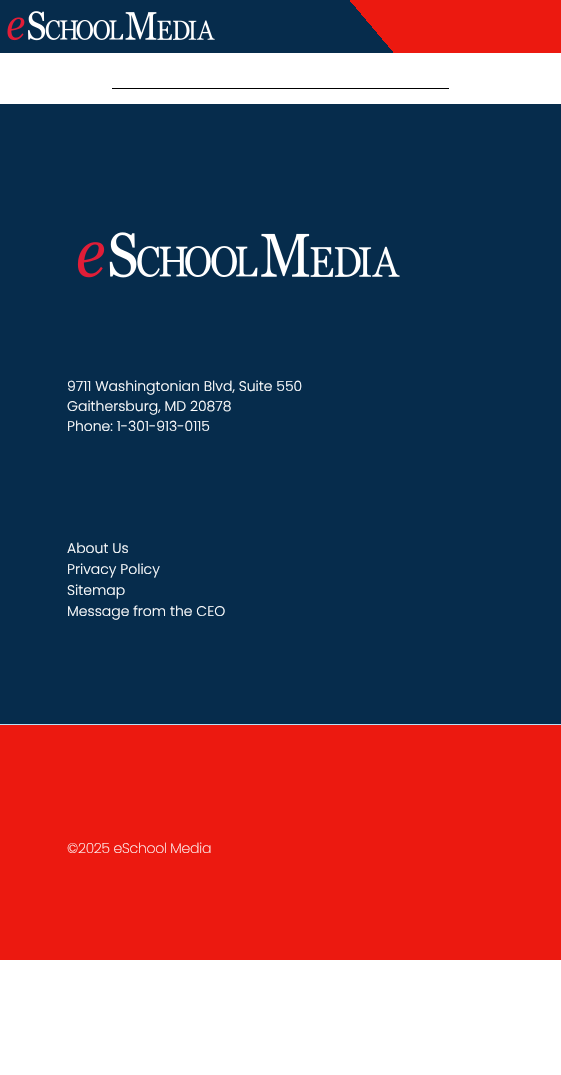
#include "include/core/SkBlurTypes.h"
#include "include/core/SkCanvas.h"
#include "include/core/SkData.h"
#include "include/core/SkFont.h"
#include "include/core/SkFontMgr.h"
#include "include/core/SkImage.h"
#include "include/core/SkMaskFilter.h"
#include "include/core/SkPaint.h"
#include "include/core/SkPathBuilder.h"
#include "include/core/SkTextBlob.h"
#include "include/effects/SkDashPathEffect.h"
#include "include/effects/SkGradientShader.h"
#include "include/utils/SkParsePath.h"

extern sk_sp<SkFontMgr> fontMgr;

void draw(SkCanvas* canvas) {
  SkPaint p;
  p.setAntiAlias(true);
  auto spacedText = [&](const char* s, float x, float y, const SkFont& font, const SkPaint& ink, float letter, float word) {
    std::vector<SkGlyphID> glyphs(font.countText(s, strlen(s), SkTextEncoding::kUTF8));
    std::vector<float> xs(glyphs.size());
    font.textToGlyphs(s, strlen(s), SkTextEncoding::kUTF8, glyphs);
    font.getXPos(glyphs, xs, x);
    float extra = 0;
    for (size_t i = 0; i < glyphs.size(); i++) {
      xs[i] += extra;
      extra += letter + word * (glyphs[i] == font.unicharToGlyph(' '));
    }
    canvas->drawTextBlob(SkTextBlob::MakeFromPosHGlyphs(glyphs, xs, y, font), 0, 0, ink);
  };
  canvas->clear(SK_ColorWHITE);
  {
    const SkColor colors[] = {SkColorSetRGB(6, 44, 76), SkColorSetRGB(236, 25, 16)};
    const float stops[] = {0.65f, 0.65f};
    const SkPoint ends[] = {{103, 176}, {458, -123}};
    p.setShader(SkGradientShader::MakeLinear(ends, colors, stops, 2, SkTileMode::kClamp));
    p.setAlpha(255);
  }
  canvas->drawRect(SkRect::MakeLTRB(0, 0, 561, 53), p);
  canvas->drawImageRect(SkImages::DeferredFromEncodedData(SkData::MakeFromFileName("images/1.png")), SkRect::MakeLTRB(7, 11, 215, 41), SkSamplingOptions());
  p.setShader(nullptr);
  p.setColor(SK_ColorBLACK);
  canvas->drawRect(SkRect::MakeLTRB(112, 88, 449, 89), p);
  p.setColor(SkColorSetRGB(6, 44, 76));
  canvas->drawRect(SkRect::MakeLTRB(0, 104, 561, 724), p);
  canvas->drawImageRect(SkImages::DeferredFromEncodedData(SkData::MakeFromFileName("images/2.png")), SkRect::MakeLTRB(77, 232, 400, 278), SkSamplingOptions());
  p.setColor(SkColorSetRGB(236, 25, 16));
  canvas->drawRect(SkRect::MakeLTRB(0, 725, 561, 960), p);
  p.setColor(SkColorSetRGB(187, 222, 245));
  canvas->drawRect(SkRect::MakeLTRB(0, 724, 561, 725), p);
  SkFont font1(fontMgr->matchFamilyStyle("Poppins", SkFontStyle(300, SkFontStyle::kNormal_Width, SkFontStyle::kUpright_Slant)), 14);
  font1.setSubpixel(true);
  p.setColor(SK_ColorWHITE);
  canvas->drawString("9711 Washingtonian Blvd, Suite 550", 67, 391, font1, p);
  canvas->drawString("Gaithersburg, MD 20878", 67, 411, font1, p);
  canvas->drawString("Phone: 1-301-913-0115", 67, 431, font1, p);
  canvas->drawString("About Us", 67, 553, font1, p);
  canvas->drawString("Privacy Policy", 67, 574, font1, p);
  canvas->drawString("Sitemap", 67, 595, font1, p);
  canvas->drawString("Message from the CEO", 67, 616, font1, p);
  SkFont font2(fontMgr->matchFamilyStyle("Poppins", SkFontStyle(200, SkFontStyle::kNormal_Width, SkFontStyle::kUpright_Slant)), 14);
  font2.setSubpixel(true);
  spacedText("©2025 eSchool Media", 67, 853, font2, p, -0.25f, 0);
}
